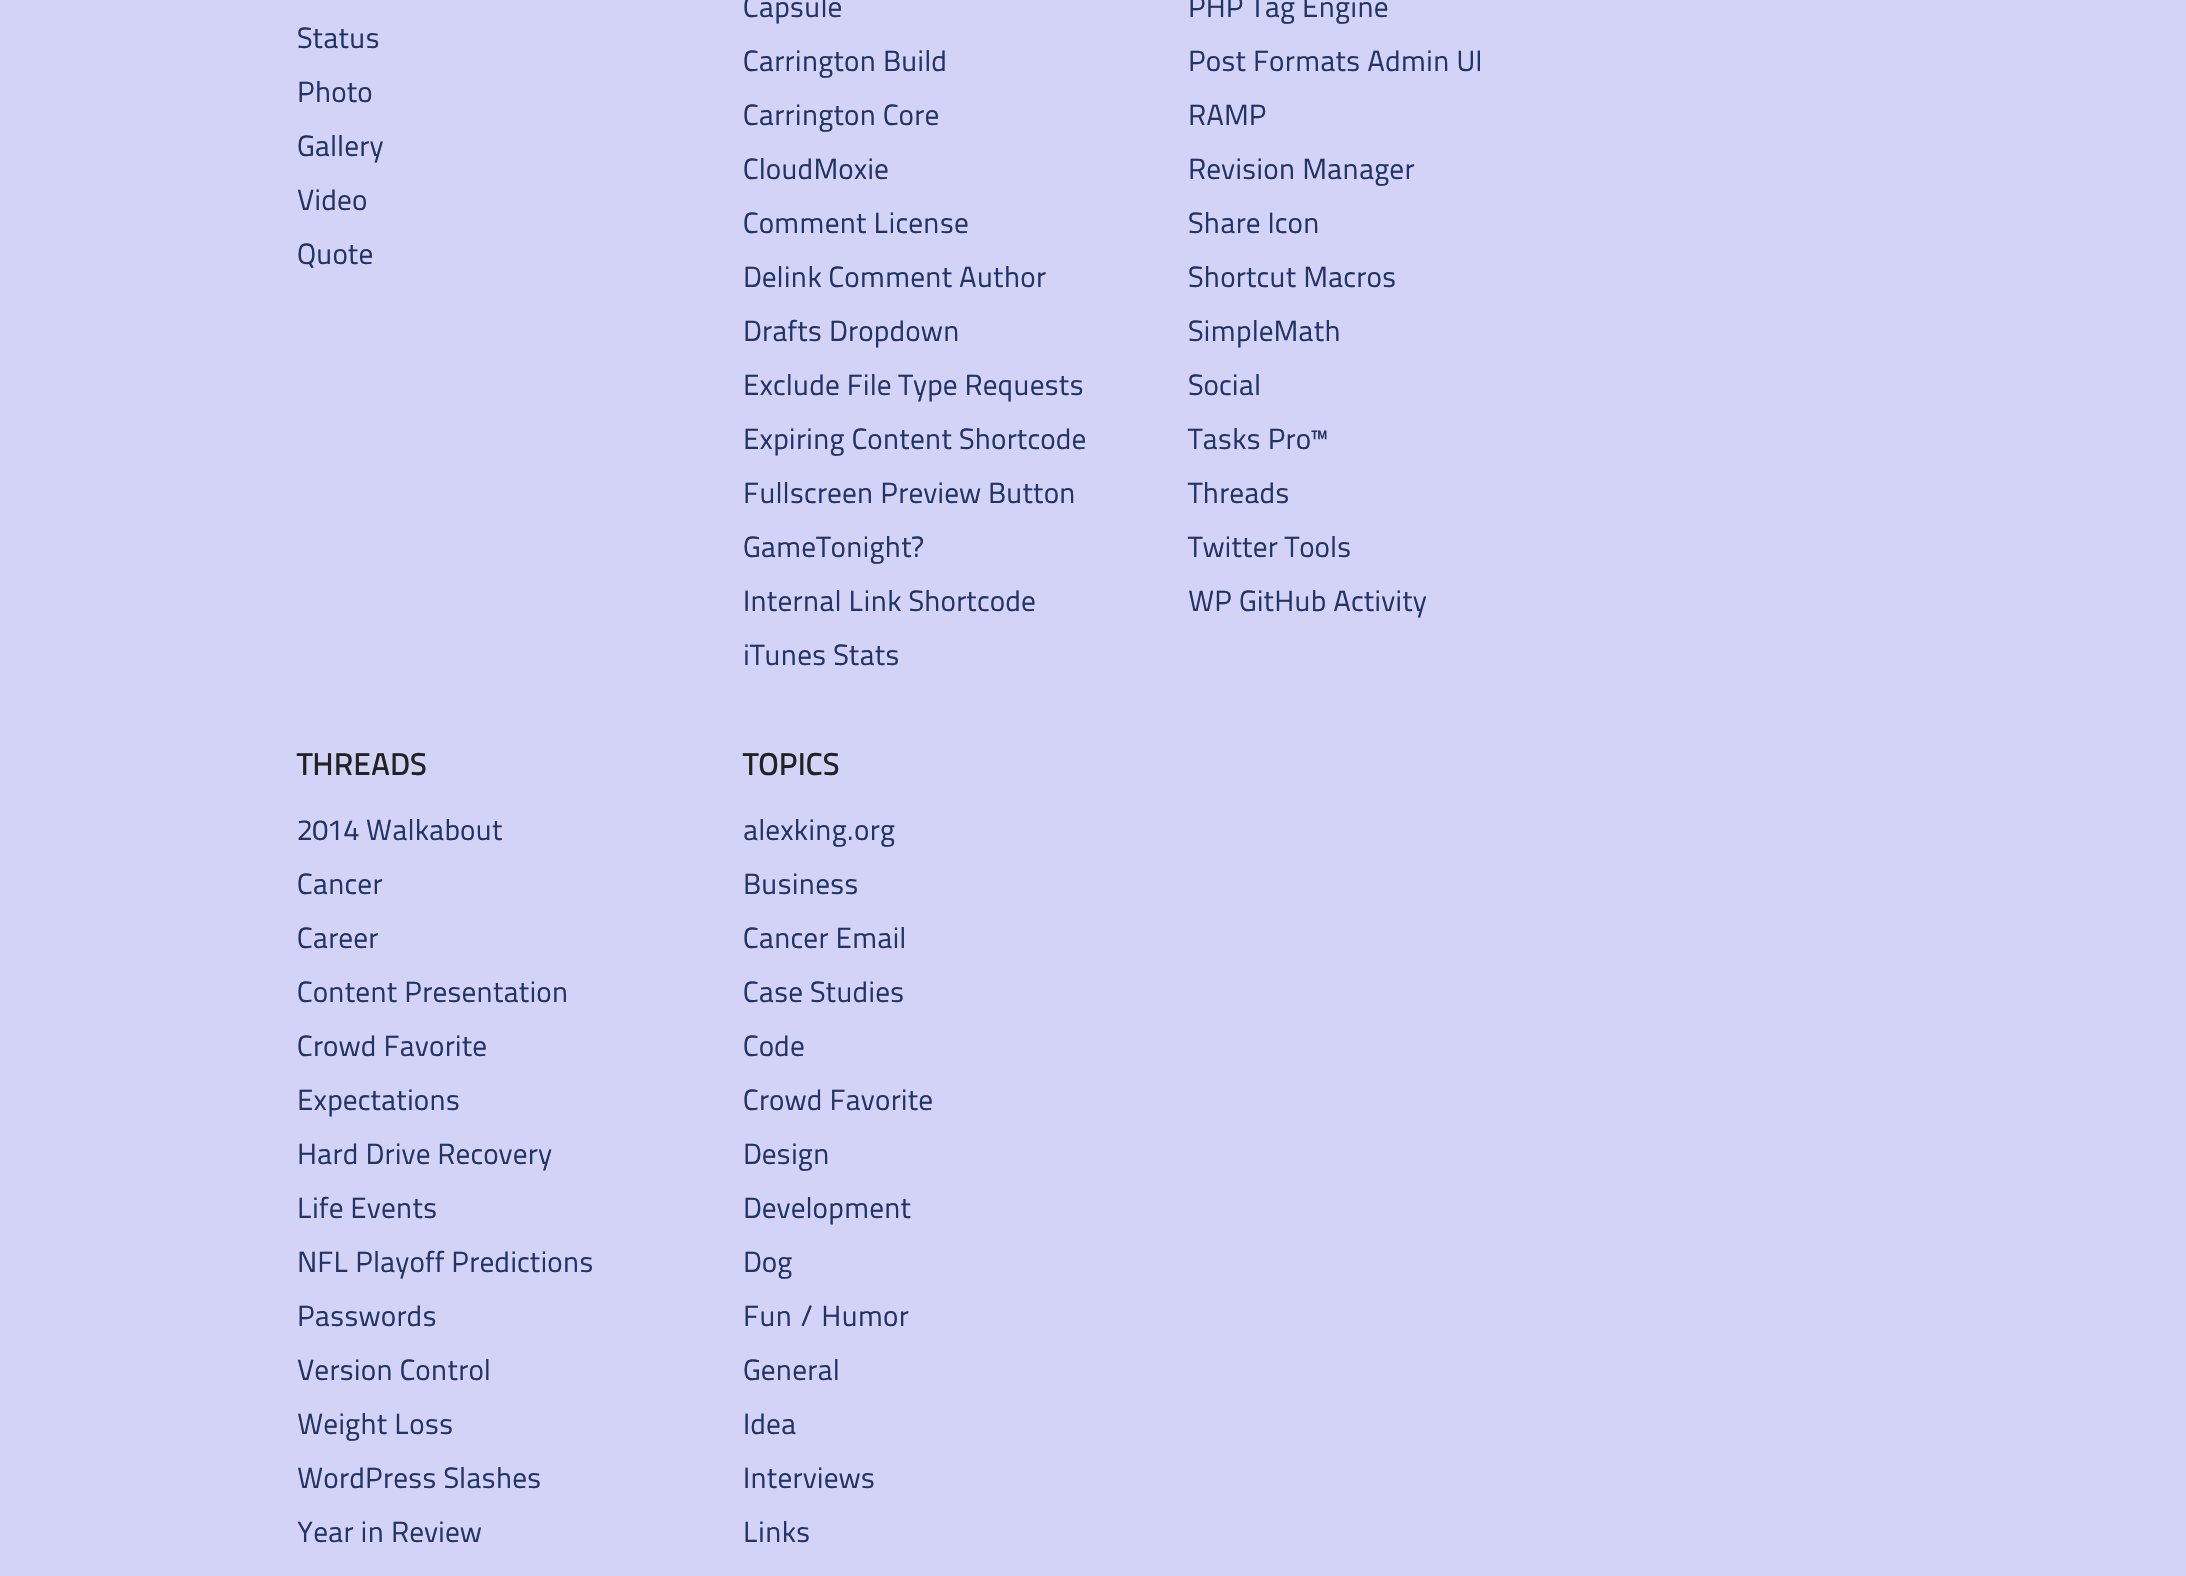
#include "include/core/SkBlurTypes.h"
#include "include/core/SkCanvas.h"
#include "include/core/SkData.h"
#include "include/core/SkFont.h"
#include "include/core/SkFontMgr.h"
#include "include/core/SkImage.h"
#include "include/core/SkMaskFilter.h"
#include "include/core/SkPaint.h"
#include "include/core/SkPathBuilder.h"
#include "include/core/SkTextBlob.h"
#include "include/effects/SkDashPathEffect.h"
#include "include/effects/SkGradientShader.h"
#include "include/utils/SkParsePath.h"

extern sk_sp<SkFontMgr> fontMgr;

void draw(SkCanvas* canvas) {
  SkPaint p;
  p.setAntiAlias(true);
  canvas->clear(SkColorSetRGB(211, 211, 247));
  SkFont font1(fontMgr->matchFamilyStyle("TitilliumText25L", SkFontStyle::Normal()), 29.25f);
  font1.setSubpixel(true);
  p.setColor(SkColorSetRGB(34, 51, 102));
  canvas->drawString("Status", 297, 48, font1, p);
  canvas->drawString("Photo", 297, 102, font1, p);
  canvas->drawString("Gallery", 297, 156, font1, p);
  canvas->drawString("Video", 297, 210, font1, p);
  canvas->drawString("Quote", 297, 264, font1, p);
  canvas->drawString("Capsule", 743, 17, font1, p);
  canvas->drawString("Carrington Build", 743, 71, font1, p);
  canvas->drawString("Carrington Core", 743, 125, font1, p);
  canvas->drawString("CloudMoxie", 743, 179, font1, p);
  canvas->drawString("Comment License", 743, 233, font1, p);
  canvas->drawString("Delink Comment Author", 743, 287, font1, p);
  canvas->drawString("Drafts Dropdown", 743, 341, font1, p);
  canvas->drawString("Exclude File Type Requests", 743, 395, font1, p);
  canvas->drawString("Expiring Content Shortcode", 743, 449, font1, p);
  canvas->drawString("Fullscreen Preview Button", 743, 503, font1, p);
  canvas->drawString("GameTonight?", 743, 557, font1, p);
  canvas->drawString("Internal Link Shortcode", 743, 611, font1, p);
  canvas->drawString("iTunes Stats", 743, 665, font1, p);
  canvas->drawString("PHP Tag Engine", 1188, 17, font1, p);
  canvas->drawString("Post Formats Admin UI", 1188, 71, font1, p);
  canvas->drawString("RAMP", 1188, 125, font1, p);
  canvas->drawString("Revision Manager", 1188, 179, font1, p);
  canvas->drawString("Share Icon", 1188, 233, font1, p);
  canvas->drawString("Shortcut Macros", 1188, 287, font1, p);
  canvas->drawString("SimpleMath", 1188, 341, font1, p);
  canvas->drawString("Social", 1188, 395, font1, p);
  canvas->drawString("Tasks Pro™", 1188, 449, font1, p);
  canvas->drawString("Threads", 1188, 503, font1, p);
  canvas->drawString("Twitter Tools", 1188, 557, font1, p);
  canvas->drawString("WP GitHub Activity", 1188, 611, font1, p);
  SkFont font2(fontMgr->matchFamilyStyle("TitilliumText25L", SkFontStyle(600, SkFontStyle::kNormal_Width, SkFontStyle::kUpright_Slant)), 31.5f);
  font2.setSubpixel(true);
  p.setColor(SkColorSetRGB(34, 34, 34));
  canvas->drawString("THREADS", 297, 775, font2, p);
  p.setColor(SkColorSetRGB(34, 51, 102));
  canvas->drawString("2014 Walkabout", 297, 840, font1, p);
  canvas->drawString("Cancer", 297, 894, font1, p);
  canvas->drawString("Career", 297, 948, font1, p);
  canvas->drawString("Content Presentation", 297, 1002, font1, p);
  canvas->drawString("Crowd Favorite", 297, 1056, font1, p);
  canvas->drawString("Expectations", 297, 1110, font1, p);
  canvas->drawString("Hard Drive Recovery", 297, 1164, font1, p);
  canvas->drawString("Life Events", 297, 1218, font1, p);
  canvas->drawString("NFL Playoff Predictions", 297, 1272, font1, p);
  canvas->drawString("Passwords", 297, 1326, font1, p);
  canvas->drawString("Version Control", 297, 1380, font1, p);
  canvas->drawString("Weight Loss", 297, 1434, font1, p);
  canvas->drawString("WordPress Slashes", 297, 1488, font1, p);
  canvas->drawString("Year in Review", 297, 1542, font1, p);
  p.setColor(SkColorSetRGB(34, 34, 34));
  canvas->drawString("TOPICS", 743, 775, font2, p);
  p.setColor(SkColorSetRGB(34, 51, 102));
  canvas->drawString("alexking.org", 743, 840, font1, p);
  canvas->drawString("Business", 743, 894, font1, p);
  canvas->drawString("Cancer Email", 743, 948, font1, p);
  canvas->drawString("Case Studies", 743, 1002, font1, p);
  canvas->drawString("Code", 743, 1056, font1, p);
  canvas->drawString("Crowd Favorite", 743, 1110, font1, p);
  canvas->drawString("Design", 743, 1164, font1, p);
  canvas->drawString("Development", 743, 1218, font1, p);
  canvas->drawString("Dog", 743, 1272, font1, p);
  canvas->drawString("Fun / Humor", 743, 1326, font1, p);
  canvas->drawString("General", 743, 1380, font1, p);
  canvas->drawString("Idea", 743, 1434, font1, p);
  canvas->drawString("Interviews", 743, 1488, font1, p);
  canvas->drawString("Links", 743, 1542, font1, p);
}
